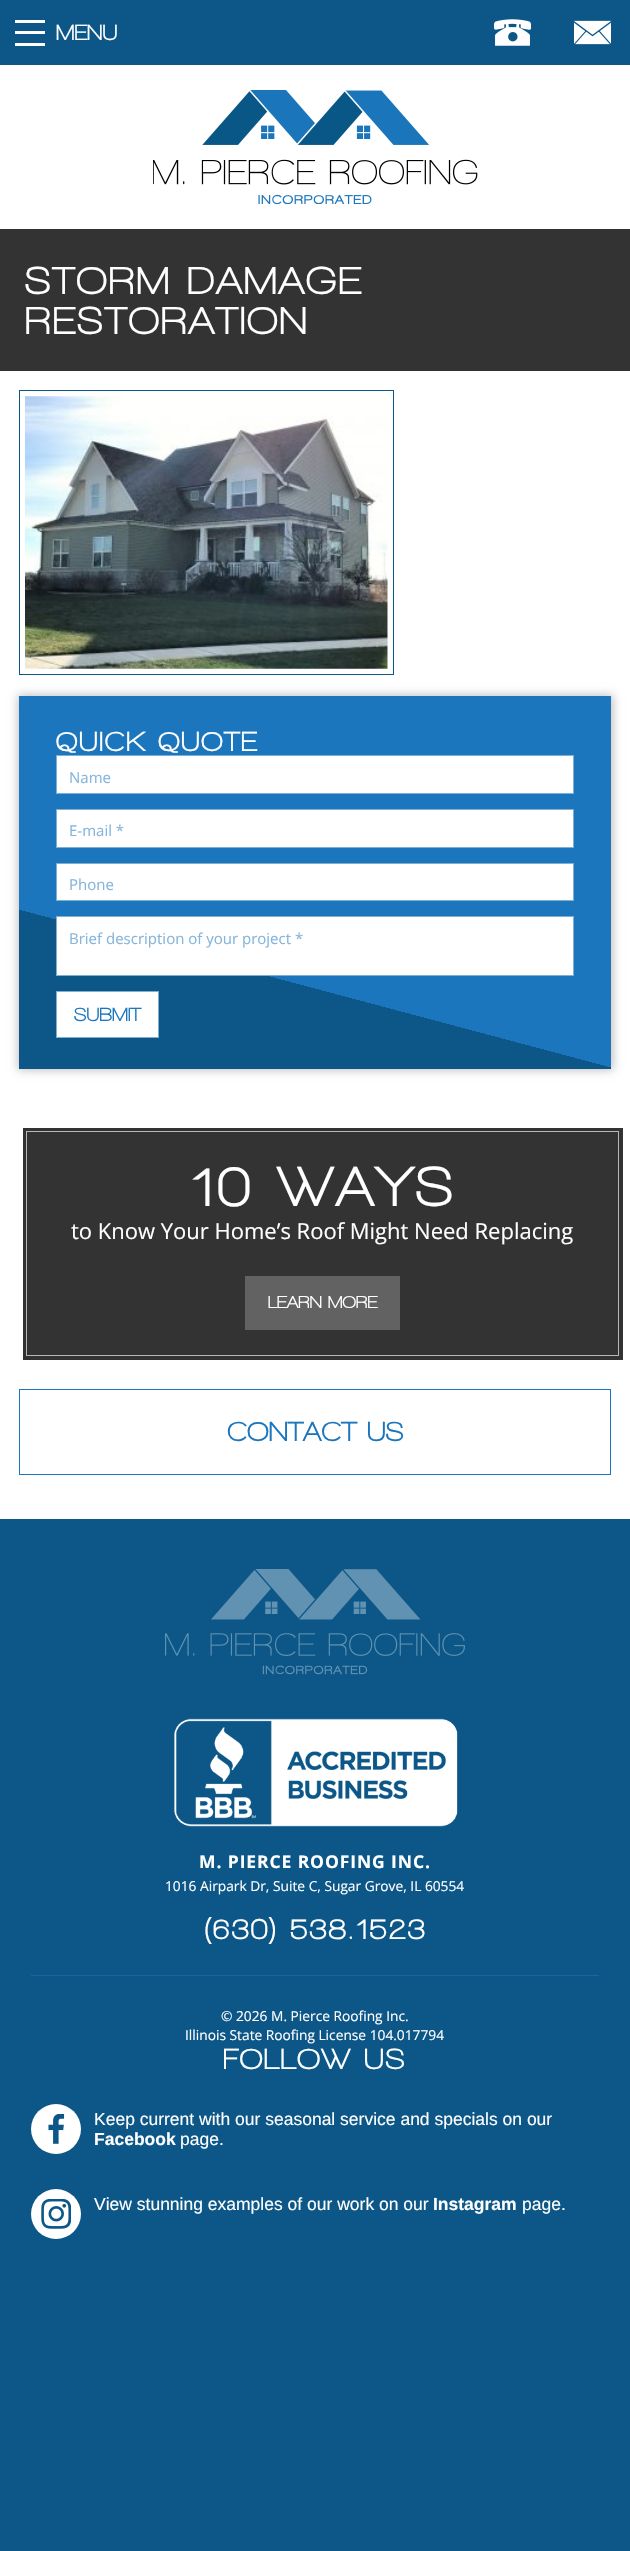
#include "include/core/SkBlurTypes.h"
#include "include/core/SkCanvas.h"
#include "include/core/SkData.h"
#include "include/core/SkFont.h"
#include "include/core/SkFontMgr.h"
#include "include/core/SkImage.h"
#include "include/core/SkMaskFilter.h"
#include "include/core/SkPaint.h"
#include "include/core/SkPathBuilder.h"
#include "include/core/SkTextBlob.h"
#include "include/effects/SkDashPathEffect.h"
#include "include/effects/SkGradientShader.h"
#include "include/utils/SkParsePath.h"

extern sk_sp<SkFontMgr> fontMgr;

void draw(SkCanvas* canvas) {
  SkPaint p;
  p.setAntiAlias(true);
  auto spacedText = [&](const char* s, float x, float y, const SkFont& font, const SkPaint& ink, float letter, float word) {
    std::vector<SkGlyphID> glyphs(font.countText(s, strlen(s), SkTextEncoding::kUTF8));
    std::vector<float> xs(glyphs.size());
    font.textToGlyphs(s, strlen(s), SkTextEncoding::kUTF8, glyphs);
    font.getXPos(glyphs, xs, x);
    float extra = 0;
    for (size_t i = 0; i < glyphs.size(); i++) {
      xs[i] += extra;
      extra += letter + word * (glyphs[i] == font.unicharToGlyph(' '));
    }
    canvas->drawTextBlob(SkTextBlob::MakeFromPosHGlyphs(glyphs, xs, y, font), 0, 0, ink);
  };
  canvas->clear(SkColorSetRGB(12, 87, 136));
  p.setColor(SK_ColorWHITE);
  canvas->drawRect(SkRect::MakeLTRB(15, 31, 45, 34), p);
  canvas->drawRect(SkRect::MakeLTRB(15, 20, 45, 23), p);
  canvas->drawRect(SkRect::MakeLTRB(15, 43, 45, 46), p);
  canvas->drawImageRect(SkImages::DeferredFromEncodedData(SkData::MakeFromFileName("images/1.png")), SkRect::MakeLTRB(494, 19, 531, 46), SkSamplingOptions());
  canvas->drawImageRect(SkImages::DeferredFromEncodedData(SkData::MakeFromFileName("images/2.png")), SkRect::MakeLTRB(574, 20, 611, 45), SkSamplingOptions());
  canvas->drawRect(SkRect::MakeLTRB(0, 65, 630, 229), p);
  canvas->drawImageRect(SkImages::DeferredFromEncodedData(SkData::MakeFromFileName("images/3.png")), SkRect::MakeLTRB(153, 90, 478, 204), SkSamplingOptions());
  p.setColor(SkColorSetRGB(51, 51, 51));
  canvas->drawRect(SkRect::MakeLTRB(0, 229, 630, 371), p);
  p.setColor(SK_ColorWHITE);
  canvas->drawRect(SkRect::MakeLTRB(0, 371, 630, 1519), p);
  p.setStyle(SkPaint::kStroke_Style);
  p.setStrokeWidth(1);
  p.setColor(SkColorSetRGB(12, 87, 136));
  canvas->drawRect(SkRect::MakeLTRB(19.5f, 390.5f, 393.5f, 674.5f), p);
  canvas->drawImageRect(SkImages::DeferredFromEncodedData(SkData::MakeFromFileName("images/4.png")), SkRect::MakeLTRB(25, 396, 388, 669), SkSamplingOptions());
  p.setStyle(SkPaint::kFill_Style);
  p.setColor(SkColorSetARGB(64, 0, 0, 0));
  p.setMaskFilter(SkMaskFilter::MakeBlur(kNormal_SkBlurStyle, 4.5f));
  canvas->drawRect(SkRect::MakeLTRB(18, 695, 613, 1070), p);
  p.setMaskFilter(nullptr);
  {
    const SkColor colors[] = {SkColorSetRGB(28, 118, 189), SkColorSetRGB(28, 118, 189), SkColorSetRGB(125, 176, 209), SkColorSetRGB(125, 176, 209), SkColorSetRGB(12, 87, 136), SkColorSetRGB(12, 87, 136)};
    const float stops[] = {0, 0.7f, 0.7f, 0.7f, 0.7f, 1};
    const SkPoint ends[] = {{381, 635}, {249, 1130}};
    p.setShader(SkGradientShader::MakeLinear(ends, colors, stops, 6, SkTileMode::kClamp));
    p.setAlpha(255);
  }
  canvas->drawRect(SkRect::MakeLTRB(19, 696, 611, 1069), p);
  p.setShader(nullptr);
  p.setColor(SK_ColorWHITE);
  canvas->drawRect(SkRect::MakeLTRB(56.5f, 755.5f, 573.5f, 793.5f), p);
  p.setStyle(SkPaint::kStroke_Style);
  p.setColor(SkColorSetRGB(125, 176, 209));
  canvas->drawRect(SkRect::MakeLTRB(56.5f, 755.5f, 573.5f, 793.5f), p);
  p.setStyle(SkPaint::kFill_Style);
  p.setColor(SK_ColorWHITE);
  canvas->drawRect(SkRect::MakeLTRB(56.5f, 809.5f, 573.5f, 847.5f), p);
  p.setStyle(SkPaint::kStroke_Style);
  p.setColor(SkColorSetRGB(125, 176, 209));
  canvas->drawRect(SkRect::MakeLTRB(56.5f, 809.5f, 573.5f, 847.5f), p);
  p.setStyle(SkPaint::kFill_Style);
  p.setColor(SK_ColorWHITE);
  canvas->drawRect(SkRect::MakeLTRB(56.5f, 863.5f, 573.5f, 900.5f), p);
  p.setStyle(SkPaint::kStroke_Style);
  p.setColor(SkColorSetRGB(125, 176, 209));
  canvas->drawRect(SkRect::MakeLTRB(56.5f, 863.5f, 573.5f, 900.5f), p);
  p.setStyle(SkPaint::kFill_Style);
  p.setColor(SK_ColorWHITE);
  canvas->drawRect(SkRect::MakeLTRB(56.5f, 916.5f, 573.5f, 975.5f), p);
  p.setStyle(SkPaint::kStroke_Style);
  p.setColor(SkColorSetRGB(125, 176, 209));
  canvas->drawRect(SkRect::MakeLTRB(56.5f, 916.5f, 573.5f, 975.5f), p);
  p.setStyle(SkPaint::kFill_Style);
  p.setColor(SK_ColorWHITE);
  canvas->drawRect(SkRect::MakeLTRB(56.5f, 991.5f, 158.5f, 1037.5f), p);
  p.setStyle(SkPaint::kStroke_Style);
  p.setColor(SkColorSetRGB(125, 176, 209));
  canvas->drawRect(SkRect::MakeLTRB(56.5f, 991.5f, 158.5f, 1037.5f), p);
  p.setStrokeWidth(4);
  p.setColor(SkColorSetRGB(51, 51, 51));
  canvas->drawRect(SkRect::MakeLTRB(25, 1130, 621, 1358), p);
  p.setStyle(SkPaint::kFill_Style);
  canvas->drawRect(SkRect::MakeLTRB(26.5f, 1131.5f, 618.5f, 1355.5f), p);
  p.setStyle(SkPaint::kStroke_Style);
  p.setStrokeWidth(1);
  p.setColor(SkColorSetRGB(184, 184, 184));
  canvas->drawRect(SkRect::MakeLTRB(26.5f, 1131.5f, 618.5f, 1355.5f), p);
  p.setStyle(SkPaint::kFill_Style);
  p.setColor(SkColorSetRGB(98, 98, 98));
  canvas->drawRect(SkRect::MakeLTRB(245, 1276, 400, 1330), p);
  p.setStyle(SkPaint::kStroke_Style);
  p.setColor(SkColorSetRGB(28, 118, 189));
  canvas->drawRect(SkRect::MakeLTRB(19.5f, 1389.5f, 610.5f, 1474.5f), p);
  canvas->drawImageRect(SkImages::DeferredFromEncodedData(SkData::MakeFromFileName("images/5.png")), SkRect::MakeLTRB(165, 1569, 465, 1675), SkSamplingOptions());
  canvas->drawImageRect(SkImages::DeferredFromEncodedData(SkData::MakeFromFileName("images/6.png")), SkRect::MakeLTRB(174, 1718, 458, 1827), SkSamplingOptions());
  p.setStyle(SkPaint::kFill_Style);
  p.setColor(SkColorSetRGB(20, 103, 163));
  canvas->drawRect(SkRect::MakeLTRB(31, 1975, 599, 1976), p);
  p.setColor(SK_ColorWHITE);
  canvas->drawCircle(56, 2129, 25, p);
  canvas->drawImageRect(SkImages::DeferredFromEncodedData(SkData::MakeFromFileName("images/7.png")), SkRect::MakeLTRB(48, 2114, 65, 2144), SkSamplingOptions());
  canvas->drawCircle(56, 2214, 25, p);
  canvas->drawImageRect(SkImages::DeferredFromEncodedData(SkData::MakeFromFileName("images/8.png")), SkRect::MakeLTRB(41, 2199, 71, 2229), SkSamplingOptions());
  SkFont font1(fontMgr->matchFamilyStyle("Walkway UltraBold", SkFontStyle(800, SkFontStyle::kNormal_Width, SkFontStyle::kUpright_Slant)), 22.5f);
  font1.setSubpixel(true);
  canvas->drawString("MENU", 56, 40, font1, p);
  SkFont font2(fontMgr->matchFamilyStyle("Walkway UltraBold", SkFontStyle(800, SkFontStyle::kNormal_Width, SkFontStyle::kUpright_Slant)), 40);
  font2.setSubpixel(true);
  spacedText("STORM DAMAGE", 25, 294, font2, p, 2, 0);
  spacedText("RESTORATION", 25, 334, font2, p, 2, 0);
  SkFont font3(fontMgr->matchFamilyStyle("Walkway UltraBold", SkFontStyle(800, SkFontStyle::kNormal_Width, SkFontStyle::kUpright_Slant)), 28.25f);
  font3.setSubpixel(true);
  spacedText("QUICK QUOTE", 56, 751, font3, p, 1.5f, 0);
  SkFont font4(fontMgr->matchFamilyStyle("Open Sans", SkFontStyle::Normal()), 15);
  font4.setSubpixel(true);
  p.setColor(SkColorSetRGB(132, 181, 219));
  canvas->drawString("Name", 69, 783, font4, p);
  canvas->drawString("E-mail *", 69, 836, font4, p);
  canvas->drawString("Phone", 69, 890, font4, p);
  canvas->drawString("Brief description of your project *", 69, 944, font4, p);
  SkFont font5(fontMgr->matchFamilyStyle("Walkway UltraBold", SkFontStyle(800, SkFontStyle::kNormal_Width, SkFontStyle::kUpright_Slant)), 19.5f);
  font5.setSubpixel(true);
  p.setColor(SkColorSetRGB(28, 118, 189));
  canvas->drawString("SUBMIT", 74, 1021, font5, p);
  SkFont font6(fontMgr->matchFamilyStyle("Walkway UltraBold", SkFontStyle(800, SkFontStyle::kNormal_Width, SkFontStyle::kUpright_Slant)), 58);
  font6.setSubpixel(true);
  p.setColor(SK_ColorWHITE);
  spacedText("10 WAYS", 190, 1206, font6, p, 3, 0);
  SkFont font7(fontMgr->matchFamilyStyle("Open Sans", SkFontStyle::Normal()), 22);
  font7.setSubpixel(true);
  canvas->drawString("to Know Your Home’s Roof Might Need Replacing", 71, 1239, font7, p);
  SkFont font8(fontMgr->matchFamilyStyle("Walkway UltraBold", SkFontStyle(800, SkFontStyle::kNormal_Width, SkFontStyle::kUpright_Slant)), 17.75f);
  font8.setSubpixel(true);
  canvas->drawString("LEARN MORE", 268, 1308, font8, p);
  p.setColor(SkColorSetRGB(28, 118, 189));
  canvas->drawString("CONTACT US", 227, 1441, font3, p);
  SkFont font9(fontMgr->matchFamilyStyle("Open Sans", SkFontStyle::Bold()), 17.5f);
  font9.setSubpixel(true);
  p.setColor(SK_ColorWHITE);
  spacedText("M. PIERCE ROOFING INC.", 199, 1868, font9, p, 0.9f, 0);
  SkFont font10(fontMgr->matchFamilyStyle("Open Sans", SkFontStyle::Normal()), 13.75f);
  font10.setSubpixel(true);
  canvas->drawString("1016 Airpark Dr, Suite C, Sugar Grove, IL 60554", 165, 1891, font10, p);
  SkFont font11(fontMgr->matchFamilyStyle("Walkway UltraBold", SkFontStyle(800, SkFontStyle::kNormal_Width, SkFontStyle::kUpright_Slant)), 30);
  font11.setSubpixel(true);
  spacedText("(630) 538.1523", 204, 1939, font11, p, 1.5f, 0);
  canvas->drawString("© 2026 M. Pierce Roofing Inc.", 221, 2021, font10, p);
  canvas->drawString("Illinois State Roofing License 104.017794", 185, 2040, font10, p);
  spacedText("FOLLOW US", 223, 2069, font11, p, 1.5f, 0);
  SkFont font12(fontMgr->matchFamilyStyle("Liberation Sans", SkFontStyle::Normal()), 17.5f);
  font12.setSubpixel(true);
  canvas->drawString("Keep current with our seasonal service and specials on our", 94, 2125, font12, p);
  SkFont font13(fontMgr->matchFamilyStyle("Liberation Sans", SkFontStyle::Bold()), 17.5f);
  font13.setSubpixel(true);
  canvas->drawString("Facebook", 94, 2145, font13, p);
  canvas->drawString("page.", 180, 2145, font12, p);
  canvas->drawString("View stunning examples of our work on our", 94, 2210, font12, p);
  canvas->drawString("Instagram", 433, 2210, font13, p);
  canvas->drawString("page.", 522, 2210, font12, p);
}
